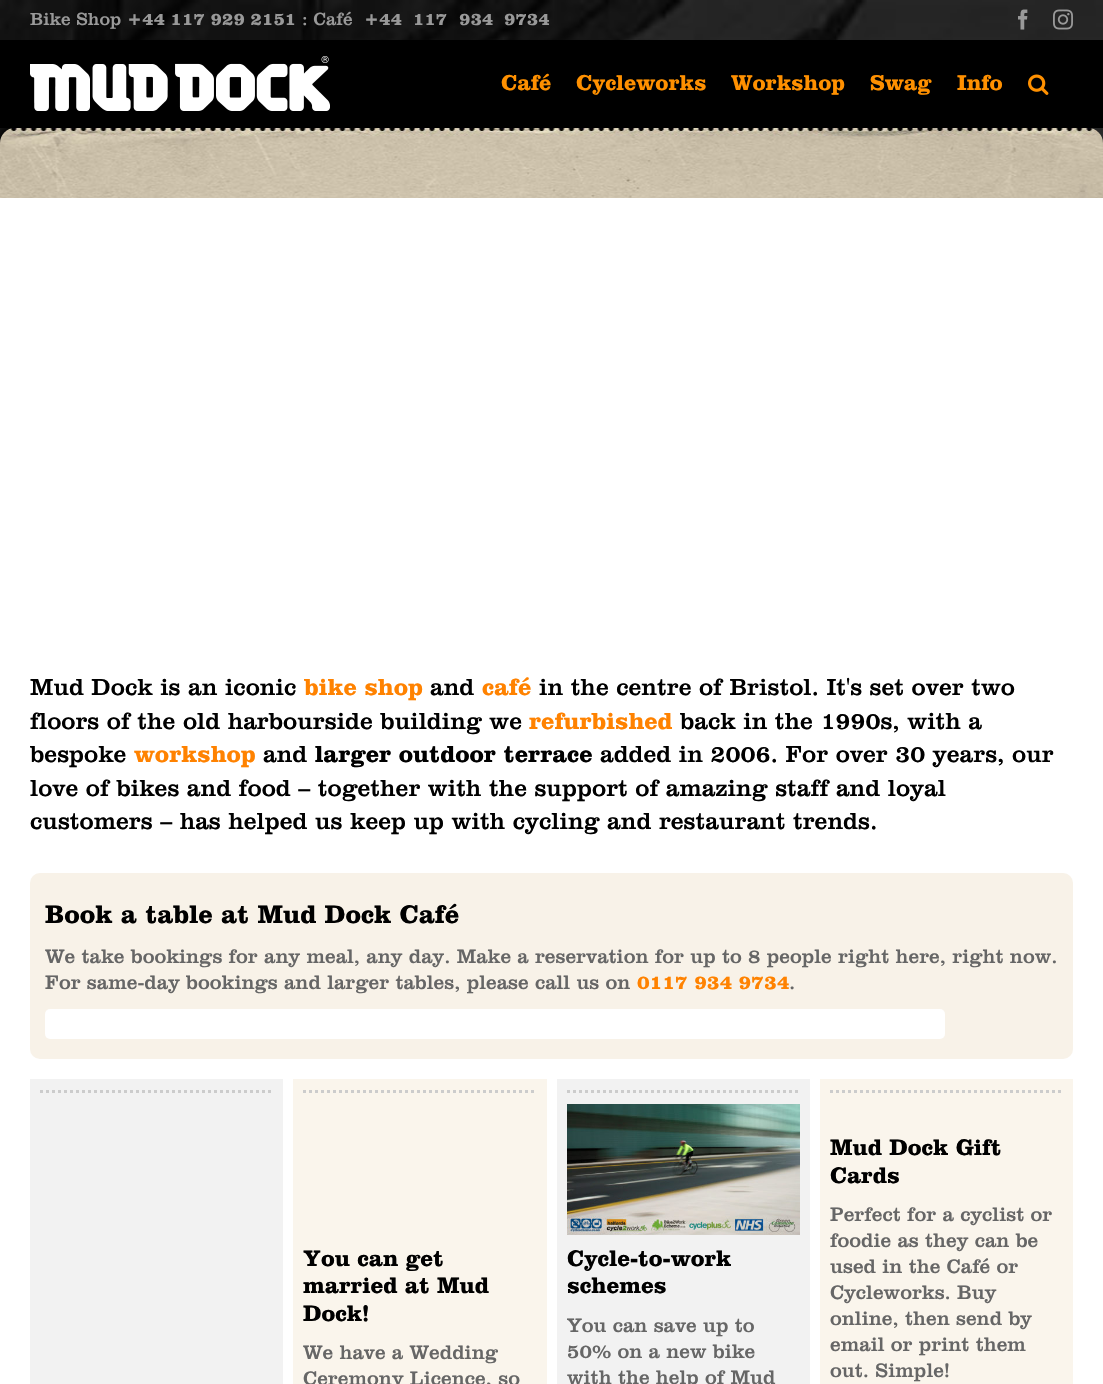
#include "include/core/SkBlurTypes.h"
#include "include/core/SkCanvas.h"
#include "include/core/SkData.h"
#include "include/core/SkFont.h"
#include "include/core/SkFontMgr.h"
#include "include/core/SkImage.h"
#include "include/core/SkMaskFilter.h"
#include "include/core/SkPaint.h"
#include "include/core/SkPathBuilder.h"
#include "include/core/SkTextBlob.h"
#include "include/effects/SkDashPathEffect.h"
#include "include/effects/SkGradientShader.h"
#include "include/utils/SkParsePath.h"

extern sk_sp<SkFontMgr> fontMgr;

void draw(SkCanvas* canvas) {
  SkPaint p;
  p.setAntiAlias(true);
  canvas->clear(SK_ColorWHITE);
  canvas->drawImageRect(SkImages::DeferredFromEncodedData(SkData::MakeFromFileName("images/1.png")), SkRect::MakeLTRB(0, 0, 1103, 143), SkSamplingOptions());
  p.setColor(SK_ColorBLACK);
  canvas->drawRect(SkRect::MakeLTRB(0, 40, 1103, 128), p);
  canvas->drawImageRect(SkImages::DeferredFromEncodedData(SkData::MakeFromFileName("images/2.png")), SkRect::MakeLTRB(1018, 9, 1028, 30), SkSamplingOptions());
  canvas->drawImageRect(SkImages::DeferredFromEncodedData(SkData::MakeFromFileName("images/3.png")), SkRect::MakeLTRB(1053, 9, 1073, 30), SkSamplingOptions());
  canvas->drawImageRect(SkImages::DeferredFromEncodedData(SkData::MakeFromFileName("images/4.png")), SkRect::MakeLTRB(30, 56, 330, 111), SkSamplingOptions());
  canvas->drawImageRect(SkImages::DeferredFromEncodedData(SkData::MakeFromFileName("images/5.png")), SkRect::MakeLTRB(1028, 74, 1049, 95), SkSamplingOptions());
  canvas->drawImageRect(SkImages::DeferredFromEncodedData(SkData::MakeFromFileName("images/6.png")), SkRect::MakeLTRB(0, 128, 1103, 198), SkSamplingOptions());
  p.setColor(SkColorSetRGB(248, 242, 232));
  canvas->drawRoundRect(SkRect::MakeLTRB(30, 873, 1073, 1059), 10, 10, p);
  p.setColor(SK_ColorWHITE);
  canvas->drawRoundRect(SkRect::MakeLTRB(45, 1009, 945, 1039), 5, 5, p);
  p.setColor(SkColorSetRGB(242, 242, 242));
  canvas->drawRect(SkRect::MakeLTRB(30, 1079, 283, 1384), p);
  p.setStyle(SkPaint::kStroke_Style);
  p.setStrokeWidth(3);
  p.setColor(SkColorSetRGB(204, 204, 204));
  p.setPathEffect(SkDashPathEffect::Make({{3, 3}}, 0));
  canvas->drawPath(SkPathBuilder().moveTo(40, 1091.5f).lineTo(273, 1091.5f).detach(), p);
  p.setPathEffect(nullptr);
  p.setStyle(SkPaint::kFill_Style);
  p.setColor(SkColorSetRGB(250, 245, 236));
  canvas->drawRect(SkRect::MakeLTRB(293, 1079, 547, 1384), p);
  p.setStyle(SkPaint::kStroke_Style);
  p.setColor(SkColorSetRGB(204, 204, 204));
  p.setPathEffect(SkDashPathEffect::Make({{3, 3}}, 0));
  canvas->drawPath(SkPathBuilder().moveTo(303, 1091.5f).lineTo(537, 1091.5f).detach(), p);
  p.setPathEffect(nullptr);
  p.setStyle(SkPaint::kFill_Style);
  p.setColor(SkColorSetRGB(242, 242, 242));
  canvas->drawRect(SkRect::MakeLTRB(557, 1079, 810, 1384), p);
  p.setStyle(SkPaint::kStroke_Style);
  p.setColor(SkColorSetRGB(204, 204, 204));
  p.setPathEffect(SkDashPathEffect::Make({{3, 3}}, 0));
  canvas->drawPath(SkPathBuilder().moveTo(567, 1091.5f).lineTo(800, 1091.5f).detach(), p);
  p.setPathEffect(nullptr);
  canvas->drawImageRect(SkImages::DeferredFromEncodedData(SkData::MakeFromFileName("images/7.png")), SkRect::MakeLTRB(567, 1104, 800, 1235), SkSamplingOptions());
  p.setStyle(SkPaint::kFill_Style);
  p.setColor(SkColorSetRGB(250, 245, 236));
  canvas->drawRect(SkRect::MakeLTRB(820, 1079, 1073, 1384), p);
  p.setStyle(SkPaint::kStroke_Style);
  p.setColor(SkColorSetRGB(204, 204, 204));
  p.setPathEffect(SkDashPathEffect::Make({{3, 3}}, 0));
  canvas->drawPath(SkPathBuilder().moveTo(830, 1091.5f).lineTo(1063, 1091.5f).detach(), p);
  p.setPathEffect(nullptr);
  SkFont font1(fontMgr->matchFamilyStyle("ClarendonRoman", SkFontStyle::Normal()), 18);
  font1.setSubpixel(true);
  p.setStyle(SkPaint::kFill_Style);
  p.setColor(SkColorSetRGB(153, 153, 153));
  canvas->drawString("Bike Shop", 30, 25, font1, p);
  SkFont font2(fontMgr->matchFamilyStyle("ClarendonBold", SkFontStyle::Normal()), 18);
  font2.setSubpixel(true);
  canvas->drawString("+44 117 929 2151", 127, 25, font2, p);
  canvas->drawString(": Café", 302, 25, font1, p);
  canvas->drawString("+44", 364, 25, font2, p);
  canvas->drawString("117", 413, 25, font2, p);
  canvas->drawString("934", 459, 25, font2, p);
  canvas->drawString("9734", 504, 25, font2, p);
  SkFont font3(fontMgr->matchFamilyStyle("ClarendonBold", SkFontStyle::Normal()), 22);
  font3.setSubpixel(true);
  p.setColor(SkColorSetRGB(255, 144, 0));
  canvas->drawString("Café", 501, 90, font3, p);
  canvas->drawString("Cycleworks", 576, 90, font3, p);
  canvas->drawString("Workshop", 731, 90, font3, p);
  canvas->drawString("Swag", 870, 90, font3, p);
  canvas->drawString("Info", 957, 90, font3, p);
  SkFont font4(fontMgr->matchFamilyStyle("ClarendonRoman", SkFontStyle::Normal()), 24);
  font4.setSubpixel(true);
  p.setColor(SK_ColorBLACK);
  canvas->drawString("Mud Dock is an iconic", 30, 695, font4, p);
  SkFont font5(fontMgr->matchFamilyStyle("ClarendonBold", SkFontStyle::Normal()), 24);
  font5.setSubpixel(true);
  p.setColor(SkColorSetRGB(255, 130, 0));
  canvas->drawString("bike shop", 304, 695, font5, p);
  p.setColor(SK_ColorBLACK);
  canvas->drawString("and", 430, 695, font4, p);
  p.setColor(SkColorSetRGB(255, 130, 0));
  canvas->drawString("café", 482, 695, font5, p);
  p.setColor(SK_ColorBLACK);
  canvas->drawString("in the centre of Bristol. It's set over two", 539, 695, font4, p);
  canvas->drawString("floors of the old harbourside building we", 30, 729, font4, p);
  p.setColor(SkColorSetRGB(255, 130, 0));
  canvas->drawString("refurbished", 529, 729, font5, p);
  p.setColor(SK_ColorBLACK);
  canvas->drawString("back in the 1990s, with a", 680, 729, font4, p);
  canvas->drawString("bespoke", 30, 762, font4, p);
  p.setColor(SkColorSetRGB(255, 130, 0));
  canvas->drawString("workshop", 134, 762, font5, p);
  p.setColor(SK_ColorBLACK);
  canvas->drawString("and", 263, 762, font4, p);
  canvas->drawString("larger outdoor terrace", 315, 762, font5, p);
  canvas->drawString("added in 2006. For over 30 years, our", 600, 762, font4, p);
  canvas->drawString("love of bikes and food – together with the support of amazing staff and loyal", 30, 796, font4, p);
  canvas->drawString("customers – has helped us keep up with cycling and restaurant trends.", 30, 829, font4, p);
  SkFont font6(fontMgr->matchFamilyStyle("ClarendonBold", SkFontStyle::Normal()), 26);
  font6.setSubpixel(true);
  canvas->drawString("Book a table at Mud Dock Café", 45, 923, font6, p);
  SkFont font7(fontMgr->matchFamilyStyle("ClarendonRoman", SkFontStyle::Normal()), 20);
  font7.setSubpixel(true);
  p.setColor(SkColorSetRGB(102, 102, 102));
  canvas->drawString("We take bookings for any meal, any day. Make a reservation for up to 8 people right here, right now.", 45, 963, font7, p);
  canvas->drawString("For same-day bookings and larger tables, please call us on", 45, 989, font7, p);
  SkFont font8(fontMgr->matchFamilyStyle("ClarendonBold", SkFontStyle::Normal()), 20);
  font8.setSubpixel(true);
  p.setColor(SkColorSetRGB(255, 130, 0));
  canvas->drawString("0117 934 9734", 637, 989, font8, p);
  p.setColor(SkColorSetRGB(102, 102, 102));
  canvas->drawString(".", 789, 989, font7, p);
  SkFont font9(fontMgr->matchFamilyStyle("ClarendonBold", SkFontStyle::Normal()), 23);
  font9.setSubpixel(true);
  p.setColor(SK_ColorBLACK);
  canvas->drawString("You can get", 303, 1266, font9, p);
  canvas->drawString("married at Mud", 303, 1293, font9, p);
  canvas->drawString("Dock!", 303, 1321, font9, p);
  p.setColor(SkColorSetRGB(102, 102, 102));
  canvas->drawString("We have a Wedding", 303, 1359, font7, p);
  canvas->drawString("Ceremony Licence, so", 303, 1385, font7, p);
  p.setColor(SK_ColorBLACK);
  canvas->drawString("Cycle-to-work", 567, 1266, font9, p);
  canvas->drawString("schemes", 567, 1293, font9, p);
  p.setColor(SkColorSetRGB(102, 102, 102));
  canvas->drawString("You can save up to", 567, 1332, font7, p);
  canvas->drawString("50% on a new bike", 567, 1358, font7, p);
  canvas->drawString("with the help of Mud", 567, 1384, font7, p);
  p.setColor(SK_ColorBLACK);
  canvas->drawString("Mud Dock Gift", 830, 1155, font9, p);
  canvas->drawString("Cards", 830, 1183, font9, p);
  p.setColor(SkColorSetRGB(102, 102, 102));
  canvas->drawString("Perfect for a cyclist or", 830, 1221, font7, p);
  canvas->drawString("foodie as they can be", 830, 1247, font7, p);
  canvas->drawString("used in the Café or", 830, 1273, font7, p);
  canvas->drawString("Cycleworks. Buy", 830, 1299, font7, p);
  canvas->drawString("online, then send by", 830, 1325, font7, p);
  canvas->drawString("email or print them", 830, 1351, font7, p);
  canvas->drawString("out. Simple!", 830, 1377, font7, p);
}
